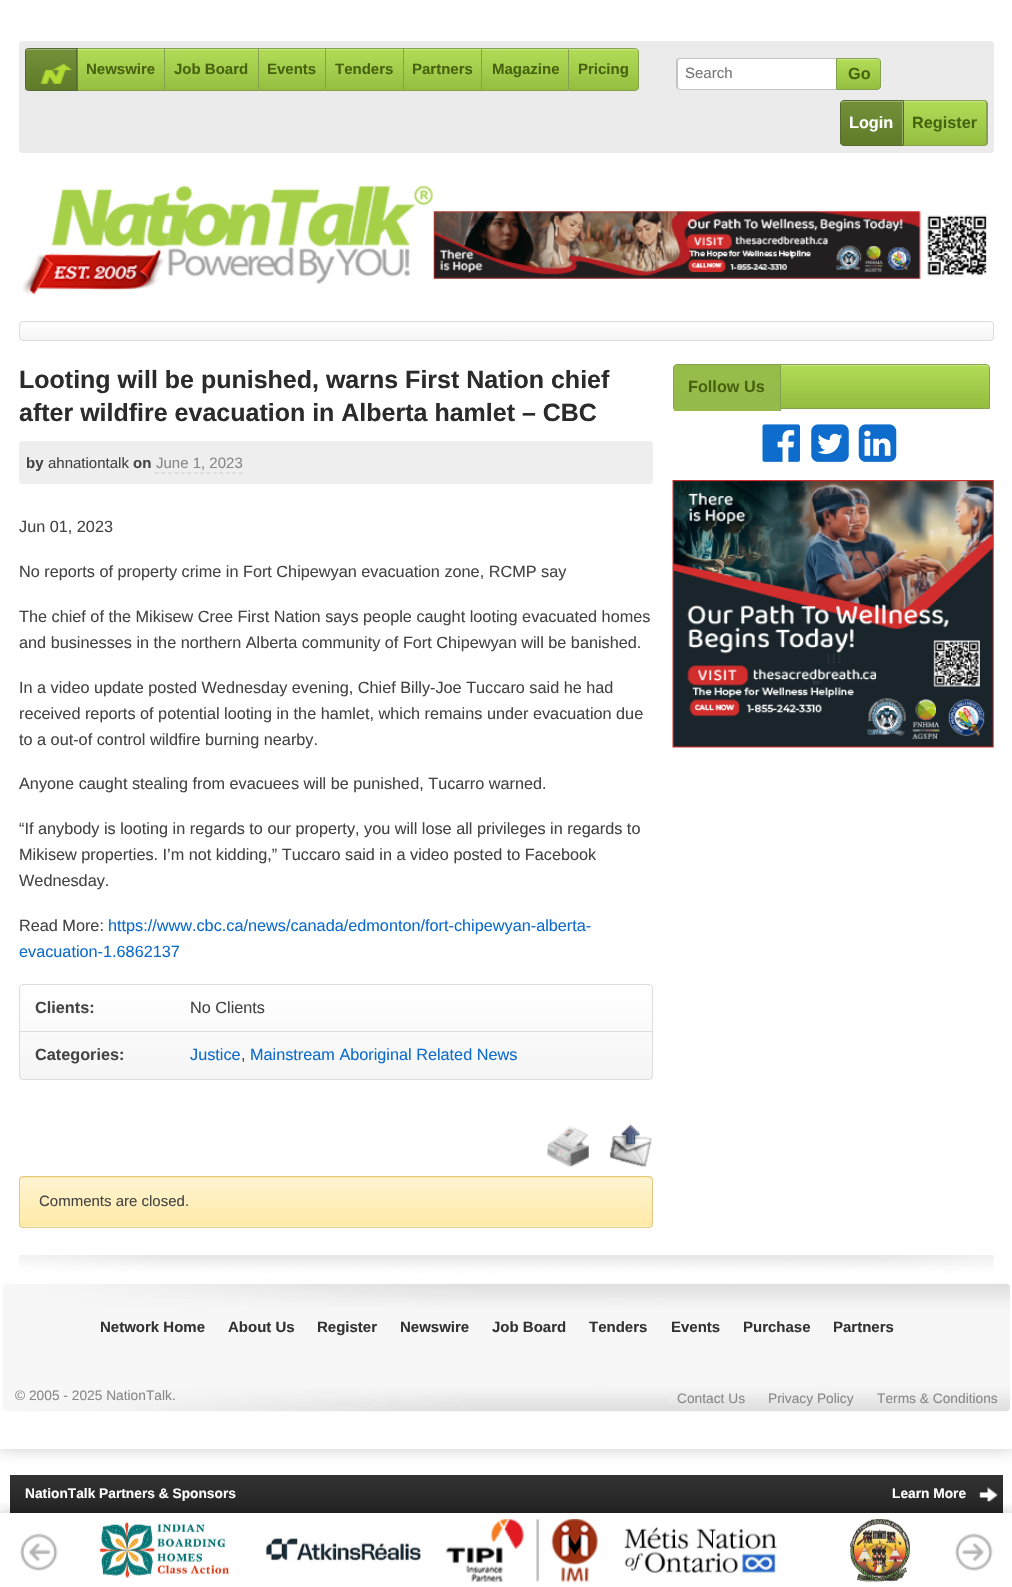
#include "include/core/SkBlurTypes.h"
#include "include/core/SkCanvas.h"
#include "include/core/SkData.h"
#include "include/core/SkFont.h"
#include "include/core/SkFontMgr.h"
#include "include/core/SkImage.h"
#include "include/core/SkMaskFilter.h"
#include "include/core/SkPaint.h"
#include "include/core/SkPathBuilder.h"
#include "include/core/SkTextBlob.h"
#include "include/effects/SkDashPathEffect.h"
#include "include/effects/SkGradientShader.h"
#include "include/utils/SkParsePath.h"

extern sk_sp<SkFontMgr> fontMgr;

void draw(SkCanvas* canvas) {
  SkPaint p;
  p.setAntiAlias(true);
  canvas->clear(SK_ColorWHITE);
  p.setColor(SkColorSetARGB(51, 0, 0, 0));
  p.setMaskFilter(SkMaskFilter::MakeBlur(kNormal_SkBlurStyle, 7.5f));
  canvas->drawRect(SkRect::MakeLTRB(0, 0, 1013, 1449), p);
  p.setMaskFilter(nullptr);
  p.setColor(SK_ColorWHITE);
  canvas->drawRect(SkRect::MakeLTRB(0, 0, 1012, 1449), p);
  p.setColor(SkColorSetRGB(235, 235, 235));
  canvas->drawRoundRect(SkRect::MakeLTRB(19, 41, 994, 153), 4, 4, p);
  canvas->save();
  canvas->clipPath(SkPathBuilder().moveTo(29, 48).lineTo(78, 48).lineTo(78, 91).lineTo(29, 91).cubicTo(27, 91, 25, 89, 25, 87).lineTo(25, 52).cubicTo(25, 50, 27, 48, 29, 48).close().detach(), true);
  {
    const SkColor colors[] = {SkColorSetRGB(115, 144, 57), SkColorSetRGB(96, 123, 41)};
    const float stops[] = {0, 1};
    const SkPoint ends[] = {{52, 49}, {52, 90}};
    p.setShader(SkGradientShader::MakeLinear(ends, colors, stops, 2, SkTileMode::kClamp));
    p.setAlpha(255);
  }
  canvas->drawRect(SkRect::MakeLTRB(25, 49, 78, 90), p);
  canvas->restore();
  p.setShader(nullptr);
  p.setColor(SkColorSetRGB(157, 177, 116));
  canvas->drawPath(SkPathBuilder().moveTo(29, 50).lineTo(78, 50).lineTo(78, 49).lineTo(28, 49).cubicTo(27, 49, 26, 50, 26, 52).cubicTo(26, 51, 27, 50, 29, 50).close().detach(), p);
  p.setColor(SkColorSetRGB(87, 105, 51));
  canvas->drawPath(SkPathBuilder(SkPathFillType::kEvenOdd).moveTo(29, 48).lineTo(78, 48).lineTo(78, 91).lineTo(29, 91).cubicTo(27, 91, 25, 90, 25, 88).lineTo(25, 51).cubicTo(25, 49, 27, 48, 29, 48).close().moveTo(29, 49).lineTo(78, 49).lineTo(78, 90).lineTo(29, 90).cubicTo(27, 90, 26, 89, 26, 88).lineTo(26, 51).cubicTo(26, 50, 27, 49, 29, 49).close().detach(), p);
  canvas->drawImageRect(SkImages::DeferredFromEncodedData(SkData::MakeFromFileName("images/1.png")), SkRect::MakeLTRB(40, 63, 72, 84), SkSamplingOptions());
  canvas->drawRect(SkRect::MakeLTRB(76, 49, 77, 90), p);
  {
    const SkColor colors[] = {SkColorSetRGB(177, 220, 87), SkColorSetRGB(149, 190, 64)};
    const float stops[] = {0, 1};
    const SkPoint ends[] = {{121, 49}, {121, 90}};
    p.setShader(SkGradientShader::MakeLinear(ends, colors, stops, 2, SkTileMode::kClamp));
    p.setAlpha(255);
  }
  canvas->drawRect(SkRect::MakeLTRB(78, 50, 164, 90), p);
  p.setShader(nullptr);
  p.setColor(SkColorSetRGB(200, 231, 137));
  canvas->drawRect(SkRect::MakeLTRB(78, 49, 164, 50), p);
  p.setColor(SkColorSetRGB(134, 162, 78));
  canvas->drawRect(SkRect::MakeLTRB(78, 48, 568, 49), p);
  canvas->drawRect(SkRect::MakeLTRB(78, 90, 568, 91), p);
  {
    const SkColor colors[] = {SkColorSetRGB(177, 220, 87), SkColorSetRGB(149, 190, 64)};
    const float stops[] = {0, 1};
    const SkPoint ends[] = {{211, 49}, {211, 90}};
    p.setShader(SkGradientShader::MakeLinear(ends, colors, stops, 2, SkTileMode::kClamp));
    p.setAlpha(255);
  }
  canvas->drawRect(SkRect::MakeLTRB(165, 50, 258, 90), p);
  p.setShader(nullptr);
  p.setColor(SkColorSetRGB(200, 231, 137));
  canvas->drawRect(SkRect::MakeLTRB(165, 49, 258, 50), p);
  p.setColor(SkColorSetRGB(134, 162, 78));
  canvas->drawRect(SkRect::MakeLTRB(164, 48, 165, 91), p);
  {
    const SkColor colors[] = {SkColorSetRGB(177, 220, 87), SkColorSetRGB(149, 190, 64)};
    const float stops[] = {0, 1};
    const SkPoint ends[] = {{292, 49}, {292, 90}};
    p.setShader(SkGradientShader::MakeLinear(ends, colors, stops, 2, SkTileMode::kClamp));
    p.setAlpha(255);
  }
  canvas->drawRect(SkRect::MakeLTRB(259, 50, 325, 90), p);
  p.setShader(nullptr);
  p.setColor(SkColorSetRGB(200, 231, 137));
  canvas->drawRect(SkRect::MakeLTRB(259, 49, 325, 50), p);
  p.setColor(SkColorSetRGB(134, 162, 78));
  canvas->drawRect(SkRect::MakeLTRB(258, 48, 259, 91), p);
  {
    const SkColor colors[] = {SkColorSetRGB(177, 220, 87), SkColorSetRGB(149, 190, 64)};
    const float stops[] = {0, 1};
    const SkPoint ends[] = {{364, 49}, {364, 90}};
    p.setShader(SkGradientShader::MakeLinear(ends, colors, stops, 2, SkTileMode::kClamp));
    p.setAlpha(255);
  }
  canvas->drawRect(SkRect::MakeLTRB(326, 50, 403, 90), p);
  p.setShader(nullptr);
  p.setColor(SkColorSetRGB(200, 231, 137));
  canvas->drawRect(SkRect::MakeLTRB(326, 49, 403, 50), p);
  p.setColor(SkColorSetRGB(134, 162, 78));
  canvas->drawRect(SkRect::MakeLTRB(325, 48, 326, 91), p);
  {
    const SkColor colors[] = {SkColorSetRGB(177, 220, 87), SkColorSetRGB(149, 190, 64)};
    const float stops[] = {0, 1};
    const SkPoint ends[] = {{443, 49}, {443, 90}};
    p.setShader(SkGradientShader::MakeLinear(ends, colors, stops, 2, SkTileMode::kClamp));
    p.setAlpha(255);
  }
  canvas->drawRect(SkRect::MakeLTRB(404, 50, 481, 90), p);
  p.setShader(nullptr);
  p.setColor(SkColorSetRGB(200, 231, 137));
  canvas->drawRect(SkRect::MakeLTRB(404, 49, 481, 50), p);
  p.setColor(SkColorSetRGB(134, 162, 78));
  canvas->drawRect(SkRect::MakeLTRB(403, 48, 404, 91), p);
  {
    const SkColor colors[] = {SkColorSetRGB(177, 220, 87), SkColorSetRGB(149, 190, 64)};
    const float stops[] = {0, 1};
    const SkPoint ends[] = {{525, 49}, {525, 90}};
    p.setShader(SkGradientShader::MakeLinear(ends, colors, stops, 2, SkTileMode::kClamp));
    p.setAlpha(255);
  }
  canvas->drawRect(SkRect::MakeLTRB(482, 49, 568, 90), p);
  p.setShader(nullptr);
  p.setColor(SkColorSetRGB(200, 231, 137));
  canvas->drawRect(SkRect::MakeLTRB(483, 49, 568, 50), p);
  p.setColor(SkColorSetRGB(134, 162, 78));
  canvas->drawRect(SkRect::MakeLTRB(481, 48, 482, 91), p);
  canvas->save();
  canvas->clipPath(SkPathBuilder().moveTo(568, 48).lineTo(635, 48).cubicTo(637, 48, 639, 50, 639, 52).lineTo(639, 87).cubicTo(639, 89, 637, 91, 635, 91).lineTo(568, 91).close().detach(), true);
  {
    const SkColor colors[] = {SkColorSetRGB(177, 220, 87), SkColorSetRGB(149, 190, 64)};
    const float stops[] = {0, 1};
    const SkPoint ends[] = {{603, 49}, {603, 90}};
    p.setShader(SkGradientShader::MakeLinear(ends, colors, stops, 2, SkTileMode::kClamp));
    p.setAlpha(255);
  }
  canvas->drawRect(SkRect::MakeLTRB(569, 49, 639, 90), p);
  canvas->restore();
  p.setShader(nullptr);
  p.setColor(SkColorSetRGB(200, 230, 137));
  canvas->drawPath(SkPathBuilder().moveTo(569, 50).lineTo(635, 50).cubicTo(636, 50, 638, 51, 638, 52).cubicTo(638, 50, 637, 49, 636, 49).lineTo(569, 49).close().detach(), p);
  p.setStyle(SkPaint::kStroke_Style);
  p.setStrokeWidth(1);
  p.setColor(SkColorSetRGB(134, 162, 78));
  canvas->drawPath(SkPathBuilder().moveTo(568.5f, 48.5f).lineTo(635, 48.5f).cubicTo(637, 48.5f, 638.5f, 50, 638.5f, 52).lineTo(638.5f, 87).cubicTo(638.5f, 89, 637, 90.5f, 635, 90.5f).lineTo(568.5f, 90.5f).close().detach(), p);
  p.setStyle(SkPaint::kFill_Style);
  p.setColor(SK_ColorWHITE);
  canvas->drawPath(SkPathBuilder().moveTo(680, 58).lineTo(836, 58).lineTo(836, 90).lineTo(680, 90).cubicTo(678, 90, 676, 88, 676, 86).lineTo(676, 62).cubicTo(676, 60, 678, 58, 680, 58).close().detach(), p);
  p.setColor(SkColorSetRGB(195, 195, 195));
  canvas->drawPath(SkPathBuilder(SkPathFillType::kEvenOdd).moveTo(680, 58).lineTo(836, 58).lineTo(836, 90).lineTo(680, 90).cubicTo(678, 90, 676, 88, 676, 86).lineTo(676, 61).cubicTo(676, 59, 678, 58, 680, 58).close().moveTo(680, 59).lineTo(836, 59).lineTo(836, 89).lineTo(680, 89).cubicTo(679, 89, 678, 88, 678, 86).lineTo(678, 61).cubicTo(678, 60, 679, 59, 680, 59).close().detach(), p);
  canvas->save();
  canvas->clipPath(SkPathBuilder().moveTo(836, 58).lineTo(877, 58).cubicTo(879, 58, 881, 60, 881, 62).lineTo(881, 86).cubicTo(881, 88, 879, 90, 877, 90).lineTo(836, 90).close().detach(), true);
  {
    const SkColor colors[] = {SkColorSetRGB(177, 220, 87), SkColorSetRGB(149, 190, 64)};
    const float stops[] = {0, 1};
    const SkPoint ends[] = {{859, 59}, {859, 89}};
    p.setShader(SkGradientShader::MakeLinear(ends, colors, stops, 2, SkTileMode::kClamp));
    p.setAlpha(255);
  }
  canvas->drawRect(SkRect::MakeLTRB(837, 59, 881, 89), p);
  canvas->restore();
  p.setShader(nullptr);
  p.setColor(SkColorSetRGB(200, 231, 137));
  canvas->drawPath(SkPathBuilder().moveTo(838, 60).lineTo(878, 60).cubicTo(879, 60, 880, 61, 880, 62).cubicTo(880, 60, 879, 59, 878, 59).lineTo(838, 59).close().detach(), p);
  p.setStyle(SkPaint::kStroke_Style);
  p.setColor(SkColorSetRGB(134, 162, 78));
  canvas->drawPath(SkPathBuilder().moveTo(836.5f, 58.5f).lineTo(877, 58.5f).cubicTo(879, 58.5f, 880.5f, 60, 880.5f, 62).lineTo(880.5f, 86).cubicTo(880.5f, 88, 879, 89.5f, 877, 89.5f).lineTo(836.5f, 89.5f).close().detach(), p);
  canvas->save();
  canvas->clipPath(SkPathBuilder().moveTo(844, 100).lineTo(904, 100).lineTo(904, 146).lineTo(844, 146).cubicTo(842, 146, 840, 144, 840, 142).lineTo(840, 104).cubicTo(840, 102, 842, 100, 844, 100).close().detach(), true);
  p.setStyle(SkPaint::kFill_Style);
  {
    const SkColor colors[] = {SkColorSetRGB(115, 144, 57), SkColorSetRGB(96, 123, 41)};
    const float stops[] = {0, 1};
    const SkPoint ends[] = {{872, 101}, {872, 145}};
    p.setShader(SkGradientShader::MakeLinear(ends, colors, stops, 2, SkTileMode::kClamp));
    p.setAlpha(255);
  }
  canvas->drawRect(SkRect::MakeLTRB(840, 101, 903, 145), p);
  canvas->restore();
  p.setShader(nullptr);
  p.setColor(SkColorSetARGB(77, 255, 255, 255));
  canvas->drawPath(SkPathBuilder().moveTo(844, 102).lineTo(902, 102).lineTo(902, 145).lineTo(903, 145).lineTo(903, 101).lineTo(844, 101).cubicTo(842, 101, 841, 102, 841, 104).lineTo(841, 105).cubicTo(841, 104, 842, 102, 844, 102).close().detach(), p);
  p.setStyle(SkPaint::kStroke_Style);
  p.setColor(SkColorSetRGB(87, 105, 51));
  canvas->drawPath(SkPathBuilder().moveTo(844, 100.5f).lineTo(903.5f, 100.5f).lineTo(903.5f, 145.5f).lineTo(844, 145.5f).cubicTo(842, 145.5f, 840.5f, 144, 840.5f, 142).lineTo(840.5f, 104).cubicTo(840.5f, 102, 842, 100.5f, 844, 100.5f).close().detach(), p);
  canvas->save();
  canvas->clipPath(SkPathBuilder().moveTo(904, 100).lineTo(984, 100).cubicTo(986, 100, 988, 102, 988, 104).lineTo(988, 142).cubicTo(988, 144, 986, 146, 984, 146).lineTo(904, 146).close().detach(), true);
  p.setStyle(SkPaint::kFill_Style);
  {
    const SkColor colors[] = {SkColorSetRGB(177, 220, 87), SkColorSetRGB(149, 190, 64)};
    const float stops[] = {0, 1};
    const SkPoint ends[] = {{945, 101}, {945, 145}};
    p.setShader(SkGradientShader::MakeLinear(ends, colors, stops, 2, SkTileMode::kClamp));
    p.setAlpha(255);
  }
  canvas->drawRect(SkRect::MakeLTRB(904, 101, 988, 145), p);
  canvas->restore();
  p.setShader(nullptr);
  p.setColor(SkColorSetRGB(200, 230, 137));
  canvas->drawPath(SkPathBuilder().moveTo(904, 102).lineTo(984, 102).cubicTo(985, 102, 986, 104, 986, 105).lineTo(986, 104).cubicTo(986, 102, 985, 101, 984, 101).lineTo(904, 101).close().detach(), p);
  p.setColor(SkColorSetRGB(134, 162, 78));
  canvas->drawPath(SkPathBuilder(SkPathFillType::kEvenOdd).moveTo(904, 100).lineTo(984, 100).cubicTo(986, 100, 988, 102, 988, 104).lineTo(988, 142).cubicTo(988, 145, 986, 146, 984, 146).lineTo(904, 146).close().moveTo(904, 101).lineTo(984, 101).cubicTo(985, 101, 986, 102, 986, 104).lineTo(986, 142).cubicTo(986, 144, 985, 145, 984, 145).lineTo(904, 145).close().detach(), p);
  canvas->drawImageRect(SkImages::DeferredFromEncodedData(SkData::MakeFromFileName("images/2.png")), SkRect::MakeLTRB(22, 186, 433, 295), SkSamplingOptions());
  canvas->drawImageRect(SkImages::DeferredFromEncodedData(SkData::MakeFromFileName("images/3.png")), SkRect::MakeLTRB(433, 211, 987, 279), SkSamplingOptions());
  canvas->drawImageRect(SkImages::DeferredFromEncodedData(SkData::MakeFromFileName("images/11.png")), SkRect::MakeLTRB(2, 1283, 1010, 1412), SkSamplingOptions());
  canvas->drawImageRect(SkImages::DeferredFromEncodedData(SkData::MakeFromFileName("images/4.png")), SkRect::MakeLTRB(19, 1255, 994, 1284), SkSamplingOptions());
  p.setColor(SkColorSetRGB(251, 251, 251));
  canvas->drawRoundRect(SkRect::MakeLTRB(19, 321, 994, 341), 4, 4, p);
  canvas->save();
  canvas->clipPath(SkPathBuilder().moveTo(23, 321).lineTo(990, 321).cubicTo(992, 321, 994, 323, 994, 325).lineTo(994, 337).cubicTo(994, 339, 992, 341, 990, 341).lineTo(23, 341).cubicTo(21, 341, 19, 339, 19, 337).lineTo(19, 325).cubicTo(19, 323, 21, 321, 23, 321).close().detach(), true);
  {
    const SkColor colors[] = {SK_ColorWHITE, SkColorSetRGB(245, 245, 245)};
    const float stops[] = {0, 1};
    const SkPoint ends[] = {{506, 322}, {506, 340}};
    p.setShader(SkGradientShader::MakeLinear(ends, colors, stops, 2, SkTileMode::kClamp));
    p.setAlpha(255);
  }
  canvas->drawRect(SkRect::MakeLTRB(19, 323, 994, 340), p);
  canvas->restore();
  p.setStyle(SkPaint::kStroke_Style);
  p.setShader(nullptr);
  p.setColor(SkColorSetRGB(221, 221, 221));
  canvas->drawRoundRect(SkRect::MakeLTRB(19.5f, 321.5f, 993.5f, 340.5f), 3.5f, 3.5f, p);
  p.setStyle(SkPaint::kFill_Style);
  p.setColor(SkColorSetRGB(238, 238, 238));
  canvas->drawRoundRect(SkRect::MakeLTRB(19, 441, 653, 484), 4, 4, p);
  p.setStyle(SkPaint::kStroke_Style);
  p.setStrokeWidth(1.2f);
  p.setColor(SkColorSetRGB(204, 204, 204));
  p.setPathEffect(SkDashPathEffect::Make({{3.75f, 2.69f}}, 0));
  canvas->drawPath(SkPathBuilder().moveTo(155, 473).lineTo(242.5f, 473).detach(), p);
  p.setPathEffect(nullptr);
  canvas->save();
  canvas->clipPath(SkPathBuilder().moveTo(23, 984).lineTo(649, 984).cubicTo(651, 984, 653, 986, 653, 988).lineTo(653, 1076).cubicTo(653, 1078, 651, 1080, 649, 1080).lineTo(23, 1080).cubicTo(21, 1080, 19, 1078, 19, 1076).lineTo(19, 988).cubicTo(19, 986, 21, 984, 23, 984).close().detach(), true);
  p.setStyle(SkPaint::kFill_Style);
  {
    const SkColor colors[] = {SK_ColorWHITE, SkColorSetRGB(245, 245, 245)};
    const float stops[] = {0, 1};
    const SkPoint ends[] = {{336, 985}, {336, 1079}};
    p.setShader(SkGradientShader::MakeLinear(ends, colors, stops, 2, SkTileMode::kClamp));
    p.setAlpha(255);
  }
  canvas->drawRect(SkRect::MakeLTRB(19, 985, 653, 1079), p);
  canvas->restore();
  p.setStyle(SkPaint::kStroke_Style);
  p.setStrokeWidth(1);
  p.setShader(nullptr);
  p.setColor(SkColorSetRGB(221, 221, 221));
  canvas->drawRoundRect(SkRect::MakeLTRB(19.5f, 984.5f, 652.5f, 1079.5f), 3.5f, 3.5f, p);
  p.setStyle(SkPaint::kFill_Style);
  canvas->drawRect(SkRect::MakeLTRB(20, 1031, 653, 1032), p);
  canvas->drawImageRect(SkImages::DeferredFromEncodedData(SkData::MakeFromFileName("images/5.png")), SkRect::MakeLTRB(547, 1126, 589, 1167), SkSamplingOptions());
  canvas->drawImageRect(SkImages::DeferredFromEncodedData(SkData::MakeFromFileName("images/6.png")), SkRect::MakeLTRB(609, 1124, 652, 1167), SkSamplingOptions());
  p.setColor(SkColorSetRGB(255, 234, 166));
  canvas->drawRoundRect(SkRect::MakeLTRB(19, 1176, 653, 1228), 4, 4, p);
  {
    const SkColor colors[] = {SkColorSetARGB(128, 255, 255, 255), SkColorSetARGB(0, 255, 255, 255)};
    const float stops[] = {0, 1};
    const SkPoint ends[] = {{336, 1178}, {336, 1226}};
    p.setShader(SkGradientShader::MakeLinear(ends, colors, stops, 2, SkTileMode::kClamp));
    p.setAlpha(255);
  }
  canvas->drawRect(SkRect::MakeLTRB(19, 1178, 653, 1223), p);
  canvas->save();
  canvas->clipPath(SkPathBuilder().moveTo(23, 1176).lineTo(649, 1176).cubicTo(651, 1176, 653, 1178, 653, 1180).lineTo(653, 1224).cubicTo(653, 1226, 651, 1228, 649, 1228).lineTo(23, 1228).cubicTo(21, 1228, 19, 1226, 19, 1224).lineTo(19, 1180).cubicTo(19, 1178, 21, 1176, 23, 1176).close().detach(), true);
  {
    const SkColor colors[] = {SkColorSetARGB(128, 255, 255, 255), SkColorSetARGB(0, 255, 255, 255)};
    const float stops[] = {0, 1};
    const SkPoint ends[] = {{336, 1226}, {336, 1275}};
    p.setShader(SkGradientShader::MakeLinear(ends, colors, stops, 2, SkTileMode::kClamp));
    p.setAlpha(255);
  }
  canvas->drawRect(SkRect::MakeLTRB(19, 1226, 653, 1228), p);
  canvas->restore();
  p.setStyle(SkPaint::kStroke_Style);
  p.setShader(nullptr);
  p.setColor(SkColorSetRGB(225, 202, 130));
  canvas->drawRoundRect(SkRect::MakeLTRB(19.5f, 1176.5f, 652.5f, 1227.5f), 3.5f, 3.5f, p);
  canvas->save();
  canvas->clipPath(SkPathBuilder().moveTo(677, 364).lineTo(986, 364).cubicTo(988, 364, 990, 366, 990, 368).lineTo(990, 409).lineTo(673, 409).lineTo(673, 368).cubicTo(673, 366, 675, 364, 677, 364).close().detach(), true);
  p.setStyle(SkPaint::kFill_Style);
  {
    const SkColor colors[] = {SkColorSetRGB(177, 220, 87), SkColorSetRGB(148, 188, 63)};
    const float stops[] = {0, 1};
    const SkPoint ends[] = {{831, 365}, {831, 408}};
    p.setShader(SkGradientShader::MakeLinear(ends, colors, stops, 2, SkTileMode::kClamp));
    p.setAlpha(255);
  }
  canvas->drawRect(SkRect::MakeLTRB(673, 365, 990, 408), p);
  canvas->restore();
  p.setShader(nullptr);
  p.setColor(SkColorSetRGB(200, 230, 137));
  canvas->drawPath(SkPathBuilder().moveTo(676, 366).lineTo(986, 366).cubicTo(988, 366, 989, 367, 989, 369).lineTo(989, 368).cubicTo(989, 366, 988, 365, 986, 365).lineTo(676, 365).cubicTo(675, 365, 674, 366, 674, 368).lineTo(674, 369).cubicTo(674, 367, 675, 366, 676, 366).close().detach(), p);
  p.setStyle(SkPaint::kStroke_Style);
  p.setColor(SkColorSetRGB(134, 162, 78));
  canvas->drawPath(SkPathBuilder().moveTo(677, 364.5f).lineTo(986, 364.5f).cubicTo(988, 364.5f, 989.5f, 366, 989.5f, 368).lineTo(989.5f, 408.5f).lineTo(673.5f, 408.5f).lineTo(673.5f, 368).cubicTo(673.5f, 366, 675, 364.5f, 677, 364.5f).close().detach(), p);
  p.setStyle(SkPaint::kFill_Style);
  {
    const SkColor colors[] = {SkColorSetRGB(151, 188, 74), SkColorSetRGB(151, 187, 74)};
    const float stops[] = {0, 1};
    const SkPoint ends[] = {{727, 365}, {727, 411}};
    p.setShader(SkGradientShader::MakeLinear(ends, colors, stops, 2, SkTileMode::kClamp));
    p.setAlpha(255);
  }
  canvas->drawRect(SkRect::MakeLTRB(674, 365, 780, 411), p);
  p.setShader(nullptr);
  p.setColor(SkColorSetRGB(134, 162, 78));
  canvas->drawRect(SkRect::MakeLTRB(780, 365, 781, 411), p);
  canvas->drawImageRect(SkImages::DeferredFromEncodedData(SkData::MakeFromFileName("images/7.png")), SkRect::MakeLTRB(762, 424, 800, 462), SkSamplingOptions());
  canvas->drawImageRect(SkImages::DeferredFromEncodedData(SkData::MakeFromFileName("images/8.png")), SkRect::MakeLTRB(811, 424, 849, 462), SkSamplingOptions());
  canvas->drawImageRect(SkImages::DeferredFromEncodedData(SkData::MakeFromFileName("images/9.png")), SkRect::MakeLTRB(858, 424, 897, 462), SkSamplingOptions());
  canvas->drawImageRect(SkImages::DeferredFromEncodedData(SkData::MakeFromFileName("images/10.png")), SkRect::MakeLTRB(672, 480, 994, 748), SkSamplingOptions());
  {
    const SkColor colors[] = {SkColorSetRGB(50, 50, 50), SkColorSetRGB(36, 36, 36)};
    const float stops[] = {0, 1};
    const SkPoint ends[] = {{506, 1475}, {506, 1513}};
    p.setShader(SkGradientShader::MakeLinear(ends, colors, stops, 2, SkTileMode::kClamp));
    p.setAlpha(255);
  }
  canvas->drawRect(SkRect::MakeLTRB(10, 1475, 1003, 1513), p);
  canvas->drawImageRect(SkImages::DeferredFromEncodedData(SkData::MakeFromFileName("images/12.png")), SkRect::MakeLTRB(978, 1487, 998, 1502), SkSamplingOptions());
  canvas->save();
  canvas->clipRect(SkRect::MakeLTRB(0, 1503, 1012, 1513));
  p.setShader(nullptr);
  p.setColor(SkColorSetARGB(51, 0, 0, 0));
  p.setMaskFilter(SkMaskFilter::MakeBlur(kNormal_SkBlurStyle, 6));
  canvas->drawRect(SkRect::MakeLTRB(0, 1511, 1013, 1586), p);
  p.setMaskFilter(nullptr);
  canvas->restore();
  canvas->drawImageRect(SkImages::DeferredFromEncodedData(SkData::MakeFromFileName("images/13.png")), SkRect::MakeLTRB(20, 1533, 58, 1571), SkSamplingOptions());
  canvas->drawImageRect(SkImages::DeferredFromEncodedData(SkData::MakeFromFileName("images/14.png")), SkRect::MakeLTRB(99, 1521, 230, 1578), SkSamplingOptions());
  canvas->drawImageRect(SkImages::DeferredFromEncodedData(SkData::MakeFromFileName("images/15.png")), SkRect::MakeLTRB(265, 1536, 421, 1563), SkSamplingOptions());
  canvas->drawImageRect(SkImages::DeferredFromEncodedData(SkData::MakeFromFileName("images/16.png")), SkRect::MakeLTRB(446, 1519, 598, 1582), SkSamplingOptions());
  canvas->drawImageRect(SkImages::DeferredFromEncodedData(SkData::MakeFromFileName("images/17.png")), SkRect::MakeLTRB(624, 1526, 777, 1576), SkSamplingOptions());
  canvas->drawImageRect(SkImages::DeferredFromEncodedData(SkData::MakeFromFileName("images/18.png")), SkRect::MakeLTRB(850, 1519, 910, 1582), SkSamplingOptions());
  canvas->drawImageRect(SkImages::DeferredFromEncodedData(SkData::MakeFromFileName("images/19.png")), SkRect::MakeLTRB(955, 1533, 993, 1571), SkSamplingOptions());
  SkFont font1(fontMgr->matchFamilyStyle("Liberation Sans", SkFontStyle::Bold()), 15);
  font1.setSubpixel(true);
  p.setColor(SkColorSetRGB(72, 99, 15));
  canvas->drawString("Newswire", 86, 74, font1, p);
  canvas->drawString("Job Board", 174, 74, font1, p);
  canvas->drawString("Events", 267, 74, font1, p);
  canvas->drawString("Tenders", 335, 74, font1, p);
  canvas->drawString("Partners", 412, 74, font1, p);
  canvas->drawString("Magazine", 492, 74, font1, p);
  canvas->drawString("Pricing", 578, 74, font1, p);
  SkFont font2(fontMgr->matchFamilyStyle("Liberation Sans", SkFontStyle::Normal()), 15);
  font2.setSubpixel(true);
  p.setColor(SkColorSetRGB(117, 117, 117));
  canvas->drawString("Search", 685, 78, font2, p);
  SkFont font3(fontMgr->matchFamilyStyle("Liberation Sans", SkFontStyle::Bold()), 16.25f);
  font3.setSubpixel(true);
  p.setColor(SkColorSetRGB(72, 99, 15));
  canvas->drawString("Go", 848, 79, font3, p);
  p.setColor(SK_ColorWHITE);
  canvas->drawString("Login", 849, 128, font3, p);
  p.setColor(SkColorSetRGB(72, 99, 15));
  canvas->drawString("Register", 912, 128, font3, p);
  SkFont font4(fontMgr->matchFamilyStyle("Liberation Sans", SkFontStyle::Bold()), 25);
  font4.setSubpixel(true);
  p.setColor(SkColorSetRGB(43, 43, 43));
  canvas->drawString("Looting will be punished, warns First Nation chief", 19, 388, font4, p);
  canvas->drawString("after wildfire evacuation in Alberta hamlet – CBC", 19, 421, font4, p);
  p.setColor(SkColorSetRGB(68, 68, 68));
  canvas->drawString("by", 26, 468, font1, p);
  canvas->drawString("ahnationtalk", 48, 468, font2, p);
  canvas->drawString("on", 133, 468, font1, p);
  p.setColor(SkColorSetRGB(136, 136, 136));
  canvas->drawString("June 1, 2023", 156, 468, font2, p);
  SkFont font5(fontMgr->matchFamilyStyle("Liberation Sans", SkFontStyle::Normal()), 16.25f);
  font5.setSubpixel(true);
  p.setColor(SkColorSetRGB(68, 68, 68));
  canvas->drawString("Jun 01, 2023", 19, 532, font5, p);
  canvas->drawString("No reports of property crime in Fort Chipewyan evacuation zone, RCMP say", 19, 577, font5, p);
  canvas->drawString("The chief of the Mikisew Cree First Nation says people caught looting evacuated homes", 19, 622, font5, p);
  canvas->drawString("and businesses in the northern Alberta community of Fort Chipewyan will be banished.", 19, 648, font5, p);
  canvas->drawString("In a video update posted Wednesday evening, Chief Billy-Joe Tuccaro said he had", 19, 693, font5, p);
  canvas->drawString("received reports of potential looting in the hamlet, which remains under evacuation due", 19, 719, font5, p);
  canvas->drawString("to a out-of control wildfire burning nearby.", 19, 745, font5, p);
  canvas->drawString("Anyone caught stealing from evacuees will be punished, Tucarro warned.", 19, 789, font5, p);
  canvas->drawString("“If anybody is looting in regards to our property, you will lose all privileges in regards to", 19, 834, font5, p);
  canvas->drawString("Mikisew properties. I’m not kidding,” Tuccaro said in a video posted to Facebook", 19, 860, font5, p);
  canvas->drawString("Wednesday.", 19, 886, font5, p);
  canvas->drawString("Read More:", 19, 931, font5, p);
  p.setColor(SkColorSetRGB(13, 108, 204));
  canvas->drawString("https://www.cbc.ca/news/canada/edmonton/fort-chipewyan-alberta-", 108, 931, font5, p);
  canvas->drawString("evacuation-1.6862137", 19, 957, font5, p);
  p.setColor(SkColorSetRGB(68, 68, 68));
  canvas->drawString("Clients:", 35, 1013, font3, p);
  canvas->drawString("No Clients", 190, 1013, font5, p);
  canvas->drawString("Categories:", 35, 1060, font3, p);
  p.setColor(SkColorSetRGB(13, 108, 204));
  canvas->drawString("Justice", 190, 1060, font5, p);
  p.setColor(SkColorSetRGB(68, 68, 68));
  canvas->drawString(",", 241, 1060, font5, p);
  p.setColor(SkColorSetRGB(13, 108, 204));
  canvas->drawString("Mainstream Aboriginal Related News", 250, 1060, font5, p);
  p.setColor(SkColorSetRGB(68, 68, 68));
  canvas->drawString("Comments are closed.", 39, 1206, font2, p);
  p.setColor(SkColorSetRGB(72, 99, 15));
  canvas->drawString("Follow Us", 688, 392, font3, p);
  p.setColor(SkColorSetRGB(51, 51, 51));
  canvas->drawString("Network Home", 100, 1332, font1, p);
  canvas->drawString("About Us", 228, 1332, font1, p);
  canvas->drawString("Register", 317, 1332, font1, p);
  canvas->drawString("Newswire", 400, 1332, font1, p);
  canvas->drawString("Job Board", 492, 1332, font1, p);
  canvas->drawString("Tenders", 589, 1332, font1, p);
  canvas->drawString("Events", 671, 1332, font1, p);
  canvas->drawString("Purchase", 743, 1332, font1, p);
  canvas->drawString("Partners", 833, 1332, font1, p);
  SkFont font6(fontMgr->matchFamilyStyle("Liberation Sans", SkFontStyle::Normal()), 13.75f);
  font6.setSubpixel(true);
  p.setColor(SkColorSetRGB(136, 136, 136));
  canvas->drawString("© 2005 - 2025 NationTalk.", 15, 1400, font6, p);
  canvas->drawString("Contact Us", 677, 1403, font6, p);
  canvas->drawString("Privacy Policy", 768, 1403, font6, p);
  canvas->drawString("Terms & Conditions", 877, 1403, font6, p);
  SkFont font7(fontMgr->matchFamilyStyle("Liberation Sans", SkFontStyle::Bold()), 13.75f);
  font7.setSubpixel(true);
  p.setColor(SK_ColorWHITE);
  canvas->drawString("NationTalk Partners & Sponsors", 25, 1498, font7, p);
  canvas->drawString("Learn More", 892, 1498, font7, p);
}
